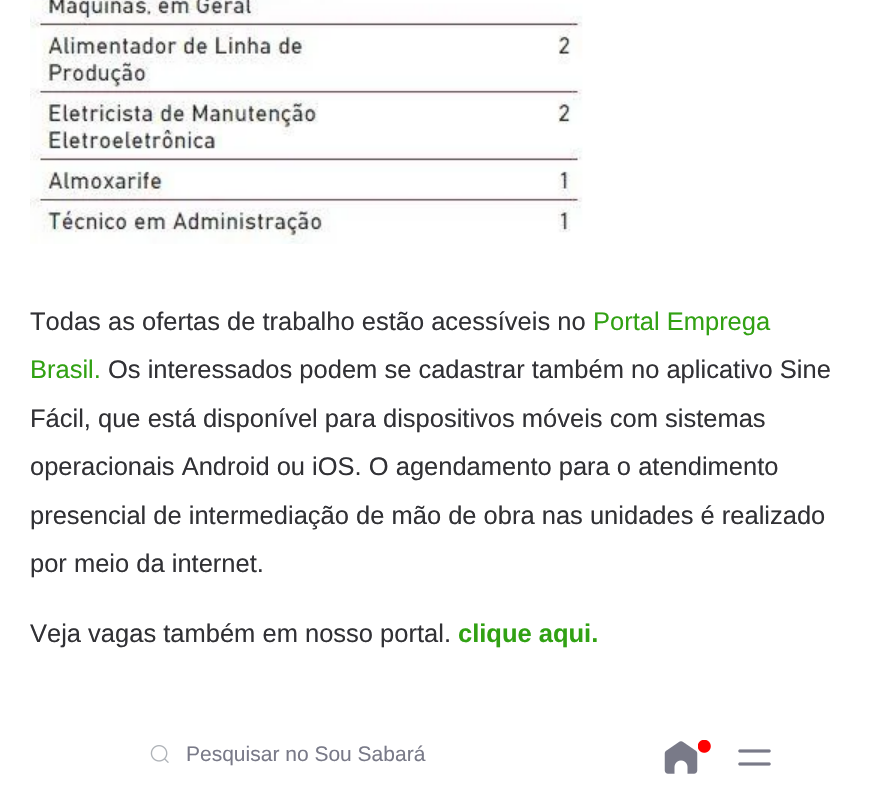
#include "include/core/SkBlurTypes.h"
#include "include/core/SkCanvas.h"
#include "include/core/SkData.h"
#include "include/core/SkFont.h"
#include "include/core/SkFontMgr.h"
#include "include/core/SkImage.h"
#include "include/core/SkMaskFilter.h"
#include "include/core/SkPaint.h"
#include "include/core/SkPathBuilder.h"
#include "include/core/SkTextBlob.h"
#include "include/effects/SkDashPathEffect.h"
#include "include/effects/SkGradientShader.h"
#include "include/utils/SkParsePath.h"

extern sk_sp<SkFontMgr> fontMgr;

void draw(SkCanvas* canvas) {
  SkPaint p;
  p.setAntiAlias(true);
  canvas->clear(SK_ColorWHITE);
  canvas->drawImageRect(SkImages::DeferredFromEncodedData(SkData::MakeFromFileName("images/1.png")), SkRect::MakeLTRB(30, 0, 583, 244), SkSamplingOptions());
  canvas->drawImageRect(SkImages::DeferredFromEncodedData(SkData::MakeFromFileName("images/2.png")), SkRect::MakeLTRB(150, 745, 169, 763), SkSamplingOptions());
  canvas->drawImageRect(SkImages::DeferredFromEncodedData(SkData::MakeFromFileName("images/3.png")), SkRect::MakeLTRB(698, 740, 711, 753), SkSamplingOptions());
  canvas->drawImageRect(SkImages::DeferredFromEncodedData(SkData::MakeFromFileName("images/4.png")), SkRect::MakeLTRB(664, 741, 698, 774), SkSamplingOptions());
  canvas->drawImageRect(SkImages::DeferredFromEncodedData(SkData::MakeFromFileName("images/5.png")), SkRect::MakeLTRB(738, 749, 771, 766), SkSamplingOptions());
  SkFont font1(fontMgr->matchFamilyStyle("Liberation Sans", SkFontStyle::Normal()), 25.5f);
  font1.setSubpixel(true);
  p.setColor(SkColorSetRGB(49, 49, 53));
  canvas->drawString("Todas as ofertas de trabalho estão acessíveis no", 30, 330, font1, p);
  p.setColor(SkColorSetRGB(49, 161, 19));
  canvas->drawString("Portal Emprega", 593, 330, font1, p);
  canvas->drawString("Brasil.", 30, 378, font1, p);
  p.setColor(SkColorSetRGB(49, 49, 53));
  canvas->drawString("Os interessados podem se cadastrar também no aplicativo Sine", 108, 378, font1, p);
  canvas->drawString("Fácil, que está disponível para dispositivos móveis com sistemas", 30, 427, font1, p);
  canvas->drawString("operacionais Android ou iOS. O agendamento para o atendimento", 30, 475, font1, p);
  canvas->drawString("presencial de intermediação de mão de obra nas unidades é realizado", 30, 524, font1, p);
  canvas->drawString("por meio da internet.", 30, 572, font1, p);
  canvas->drawString("Veja vagas também em nosso portal.", 30, 642, font1, p);
  SkFont font2(fontMgr->matchFamilyStyle("Liberation Sans", SkFontStyle::Bold()), 25.5f);
  font2.setSubpixel(true);
  p.setColor(SkColorSetRGB(49, 161, 19));
  canvas->drawString("clique aqui.", 458, 642, font2, p);
  SkFont font3(fontMgr->matchFamilyStyle("Liberation Sans", SkFontStyle::Normal()), 21);
  font3.setSubpixel(true);
  p.setColor(SkColorSetRGB(121, 122, 136));
  canvas->drawString("Pesquisar no Sou Sabará", 186, 761, font3, p);
}
